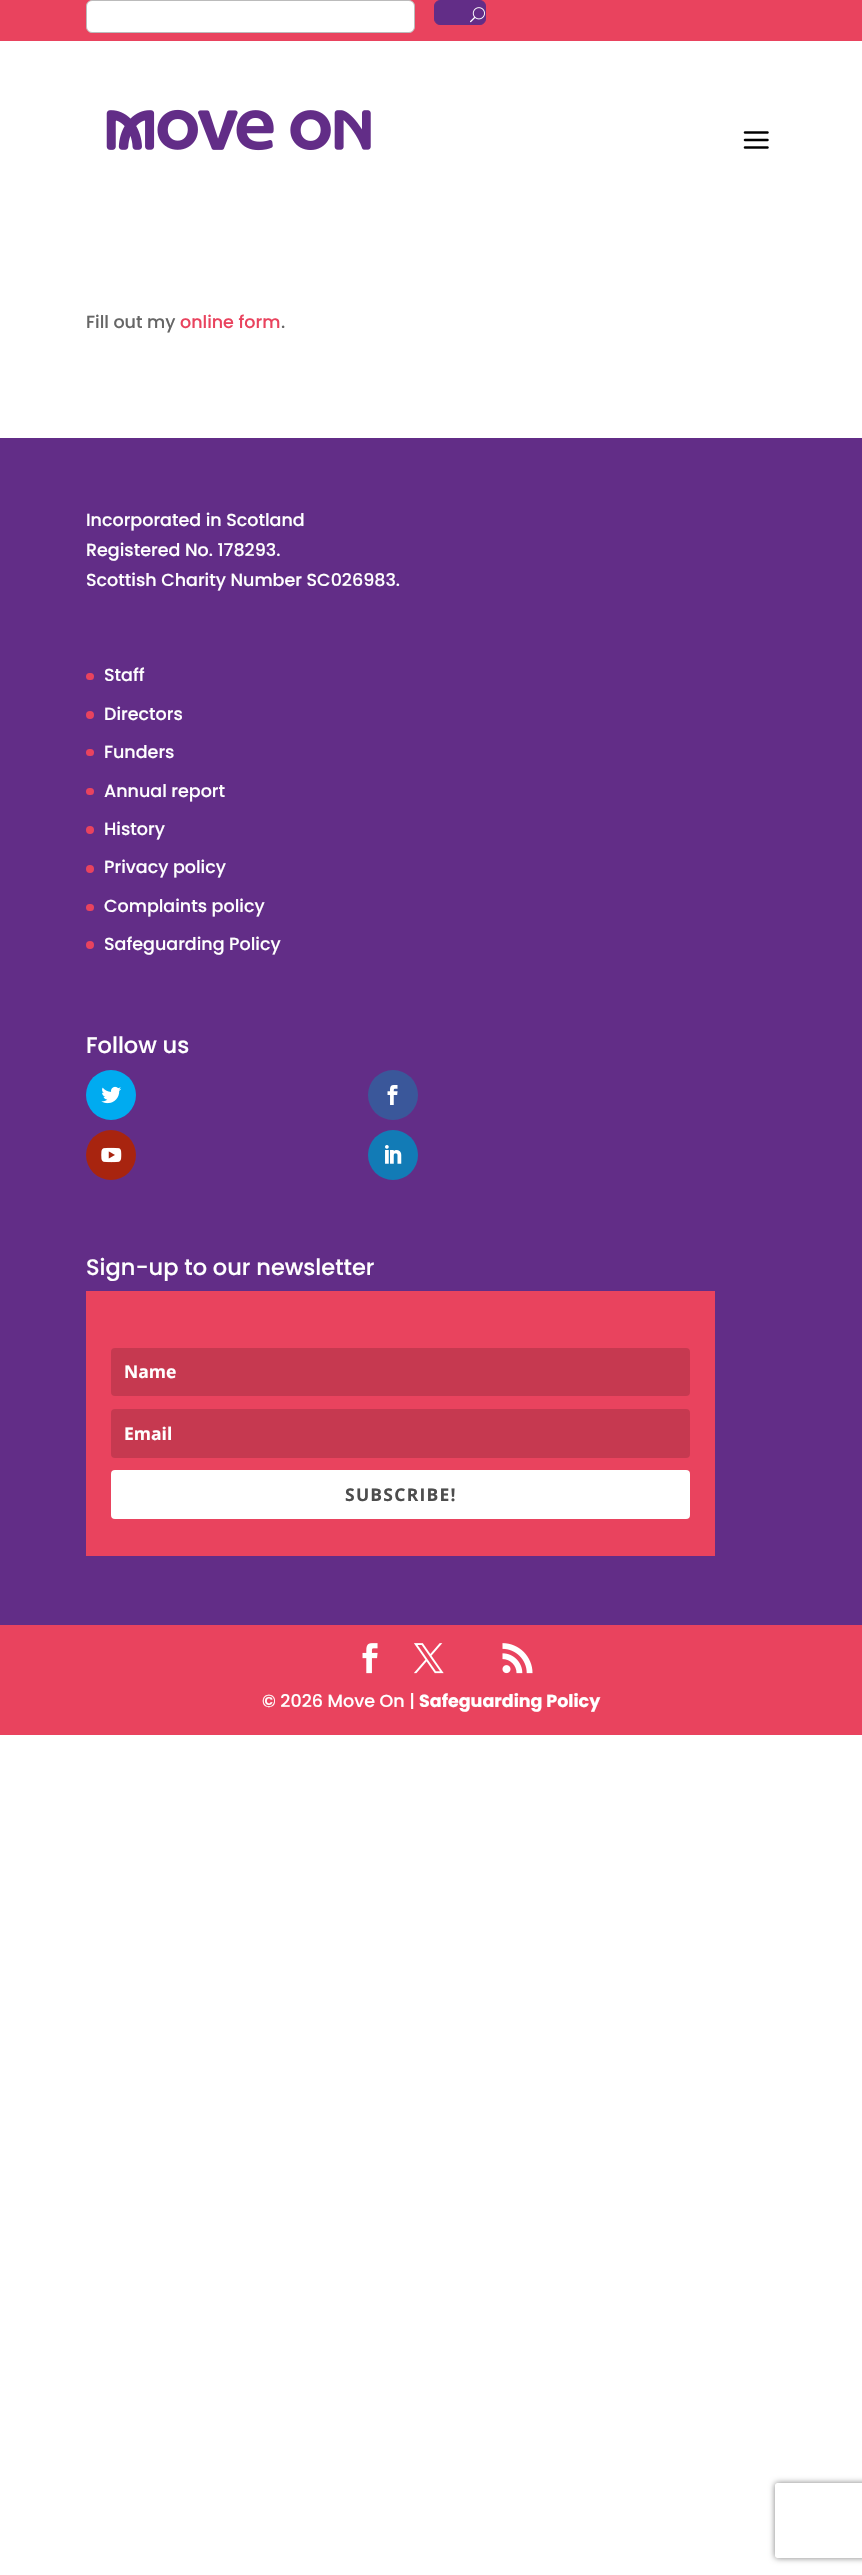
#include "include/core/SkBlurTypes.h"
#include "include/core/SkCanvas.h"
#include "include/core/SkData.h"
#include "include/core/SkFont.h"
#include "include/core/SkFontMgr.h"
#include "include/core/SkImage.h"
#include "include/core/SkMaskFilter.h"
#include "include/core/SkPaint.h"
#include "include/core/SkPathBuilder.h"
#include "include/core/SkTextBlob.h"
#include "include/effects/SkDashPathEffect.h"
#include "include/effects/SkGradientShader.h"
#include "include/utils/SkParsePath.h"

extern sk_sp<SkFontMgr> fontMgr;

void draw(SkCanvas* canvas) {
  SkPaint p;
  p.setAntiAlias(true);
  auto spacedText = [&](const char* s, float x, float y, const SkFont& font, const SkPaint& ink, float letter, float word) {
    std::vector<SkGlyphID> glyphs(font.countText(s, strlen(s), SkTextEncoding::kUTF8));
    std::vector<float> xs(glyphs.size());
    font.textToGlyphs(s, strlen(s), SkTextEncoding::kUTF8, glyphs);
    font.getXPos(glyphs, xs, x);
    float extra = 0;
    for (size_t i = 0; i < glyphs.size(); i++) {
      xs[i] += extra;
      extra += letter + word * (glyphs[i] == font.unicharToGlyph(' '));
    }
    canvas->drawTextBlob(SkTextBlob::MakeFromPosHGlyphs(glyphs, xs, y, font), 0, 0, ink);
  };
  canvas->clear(SK_ColorWHITE);
  p.setColor(SkColorSetRGB(233, 67, 94));
  canvas->drawRect(SkRect::MakeLTRB(0, 0, 862, 41), p);
  p.setColor(SK_ColorWHITE);
  canvas->drawRoundRect(SkRect::MakeLTRB(86.5f, 0.5f, 414.5f, 32.5f), 5.5f, 5.5f, p);
  p.setStyle(SkPaint::kStroke_Style);
  p.setStrokeWidth(1);
  p.setColor(SkColorSetRGB(187, 187, 187));
  canvas->drawRoundRect(SkRect::MakeLTRB(86.5f, 0.5f, 414.5f, 32.5f), 5.5f, 5.5f, p);
  p.setStyle(SkPaint::kFill_Style);
  p.setColor(SkColorSetRGB(98, 45, 135));
  canvas->drawRoundRect(SkRect::MakeLTRB(434.5f, 0.5f, 485.5f, 24.5f), 5.5f, 5.5f, p);
  p.setStyle(SkPaint::kStroke_Style);
  canvas->drawRoundRect(SkRect::MakeLTRB(434.5f, 0.5f, 485.5f, 24.5f), 5.5f, 5.5f, p);
  canvas->drawImageRect(SkImages::DeferredFromEncodedData(SkData::MakeFromFileName("images/1.png")), SkRect::MakeLTRB(470, 7, 485, 23), SkSamplingOptions());
  canvas->drawImageRect(SkImages::DeferredFromEncodedData(SkData::MakeFromFileName("images/2.png")), SkRect::MakeLTRB(106, 109, 371, 151), SkSamplingOptions());
  canvas->drawImageRect(SkImages::DeferredFromEncodedData(SkData::MakeFromFileName("images/3.png")), SkRect::MakeLTRB(743, 131, 769, 149), SkSamplingOptions());
  p.setStyle(SkPaint::kFill_Style);
  canvas->drawRect(SkRect::MakeLTRB(0, 438, 862, 1625), p);
  p.setColor(SkColorSetRGB(233, 67, 94));
  canvas->drawRoundRect(SkRect::MakeLTRB(86, 673, 94, 680), 3.5f, 3.5f, p);
  canvas->drawCircle(90, 715, 4, p);
  canvas->drawRoundRect(SkRect::MakeLTRB(86, 749, 94, 756), 3.5f, 3.5f, p);
  canvas->drawRoundRect(SkRect::MakeLTRB(86, 788, 94, 795), 3.5f, 3.5f, p);
  canvas->drawCircle(90, 830, 4, p);
  canvas->drawCircle(90, 869, 4, p);
  canvas->drawRoundRect(SkRect::MakeLTRB(86, 904, 94, 911), 3.5f, 3.5f, p);
  canvas->drawCircle(90, 945, 4, p);
  p.setColor(SkColorSetRGB(0, 171, 240));
  canvas->drawCircle(111, 1095, 25, p);
  canvas->drawImageRect(SkImages::DeferredFromEncodedData(SkData::MakeFromFileName("images/4.png")), SkRect::MakeLTRB(101, 1086, 122, 1104), SkSamplingOptions());
  p.setColor(SkColorSetRGB(58, 87, 154));
  canvas->drawCircle(393, 1095, 25, p);
  canvas->drawImageRect(SkImages::DeferredFromEncodedData(SkData::MakeFromFileName("images/5.png")), SkRect::MakeLTRB(387, 1085, 398, 1105), SkSamplingOptions());
  p.setColor(SkColorSetRGB(168, 36, 15));
  canvas->drawCircle(111, 1155, 25, p);
  canvas->drawImageRect(SkImages::DeferredFromEncodedData(SkData::MakeFromFileName("images/6.png")), SkRect::MakeLTRB(101, 1147, 122, 1163), SkSamplingOptions());
  p.setColor(SkColorSetRGB(18, 123, 182));
  canvas->drawCircle(393, 1155, 25, p);
  canvas->drawImageRect(SkImages::DeferredFromEncodedData(SkData::MakeFromFileName("images/7.png")), SkRect::MakeLTRB(385, 1145, 402, 1164), SkSamplingOptions());
  p.setColor(SkColorSetRGB(233, 67, 94));
  canvas->drawRect(SkRect::MakeLTRB(86, 1291, 715, 1556), p);
  p.setColor(SkColorSetRGB(198, 57, 80));
  canvas->drawRoundRect(SkRect::MakeLTRB(111, 1348, 690, 1396), 4, 4, p);
  canvas->drawRoundRect(SkRect::MakeLTRB(111, 1409, 690, 1458), 4, 4, p);
  p.setColor(SK_ColorWHITE);
  canvas->drawRoundRect(SkRect::MakeLTRB(111, 1470, 690, 1519), 4, 4, p);
  p.setColor(SkColorSetRGB(233, 67, 94));
  canvas->drawRect(SkRect::MakeLTRB(0, 1625, 862, 1735), p);
  canvas->drawImageRect(SkImages::DeferredFromEncodedData(SkData::MakeFromFileName("images/8.png")), SkRect::MakeLTRB(362, 1643, 378, 1674), SkSamplingOptions());
  canvas->drawImageRect(SkImages::DeferredFromEncodedData(SkData::MakeFromFileName("images/9.png")), SkRect::MakeLTRB(414, 1643, 444, 1674), SkSamplingOptions());
  canvas->drawImageRect(SkImages::DeferredFromEncodedData(SkData::MakeFromFileName("images/10.png")), SkRect::MakeLTRB(502, 1643, 533, 1674), SkSamplingOptions());
  canvas->save();
  canvas->clipPath(SkPathBuilder(SkPathFillType::kEvenOdd).moveTo(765, 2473).lineTo(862, 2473).lineTo(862, 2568).lineTo(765, 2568).close().moveTo(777.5f, 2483).lineTo(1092.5f, 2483).cubicTo(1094, 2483, 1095, 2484, 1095, 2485.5f).lineTo(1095, 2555.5f).cubicTo(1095, 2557, 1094, 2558, 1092.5f, 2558).lineTo(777.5f, 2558).cubicTo(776, 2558, 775, 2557, 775, 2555.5f).lineTo(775, 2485.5f).cubicTo(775, 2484, 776, 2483, 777.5f, 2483).close().detach(), true);
  p.setColor(SkColorSetRGB(128, 128, 128));
  p.setMaskFilter(SkMaskFilter::MakeBlur(kNormal_SkBlurStyle, 3));
  canvas->drawRoundRect(SkRect::MakeLTRB(775, 2483, 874, 2558), 2.5f, 2.5f, p);
  p.setMaskFilter(nullptr);
  canvas->restore();
  SkFont font1(fontMgr->matchFamilyStyle("Poppins", SkFontStyle(500, SkFontStyle::kNormal_Width, SkFontStyle::kUpright_Slant)), 17.5f);
  font1.setSubpixel(true);
  p.setColor(SkColorSetRGB(102, 102, 102));
  canvas->drawString("Fill out my", 86, 328, font1, p);
  p.setColor(SkColorSetRGB(233, 67, 94));
  canvas->drawString("online form", 180, 328, font1, p);
  p.setColor(SkColorSetRGB(102, 102, 102));
  canvas->drawString(".", 281, 328, font1, p);
  p.setColor(SK_ColorWHITE);
  canvas->drawString("Incorporated in Scotland", 86, 526, font1, p);
  canvas->drawString("Registered No. 178293.", 86, 556, font1, p);
  canvas->drawString("Scottish Charity Number SC026983.", 86, 586, font1, p);
  canvas->drawString("Staff", 104, 681, font1, p);
  canvas->drawString("Directors", 104, 720, font1, p);
  canvas->drawString("Funders", 104, 758, font1, p);
  canvas->drawString("Annual report", 104, 797, font1, p);
  canvas->drawString("History", 104, 835, font1, p);
  canvas->drawString("Privacy policy", 104, 873, font1, p);
  canvas->drawString("Complaints policy", 104, 912, font1, p);
  canvas->drawString("Safeguarding Policy", 104, 950, font1, p);
  SkFont font2(fontMgr->matchFamilyStyle("Poppins", SkFontStyle(500, SkFontStyle::kNormal_Width, SkFontStyle::kUpright_Slant)), 22.5f);
  font2.setSubpixel(true);
  canvas->drawString("Follow us", 86, 1053, font2, p);
  canvas->drawString("Sign-up to our newsletter", 86, 1275, font2, p);
  SkFont font3(fontMgr->matchFamilyStyle("Open Sans", SkFontStyle::Bold()), 17.5f);
  font3.setSubpixel(true);
  canvas->drawString("Name", 124, 1378, font3, p);
  canvas->drawString("Email", 124, 1440, font3, p);
  p.setColor(SkColorSetRGB(77, 77, 77));
  spacedText("SUBSCRIBE!", 345, 1501, font3, p, 1.25f, 0);
  p.setColor(SK_ColorWHITE);
  canvas->drawString("© 2026 Move On |", 262, 1707, font1, p);
  SkFont font4(fontMgr->matchFamilyStyle("Poppins", SkFontStyle::Bold()), 17.5f);
  font4.setSubpixel(true);
  canvas->drawString("Safeguarding Policy", 419, 1707, font4, p);
}
